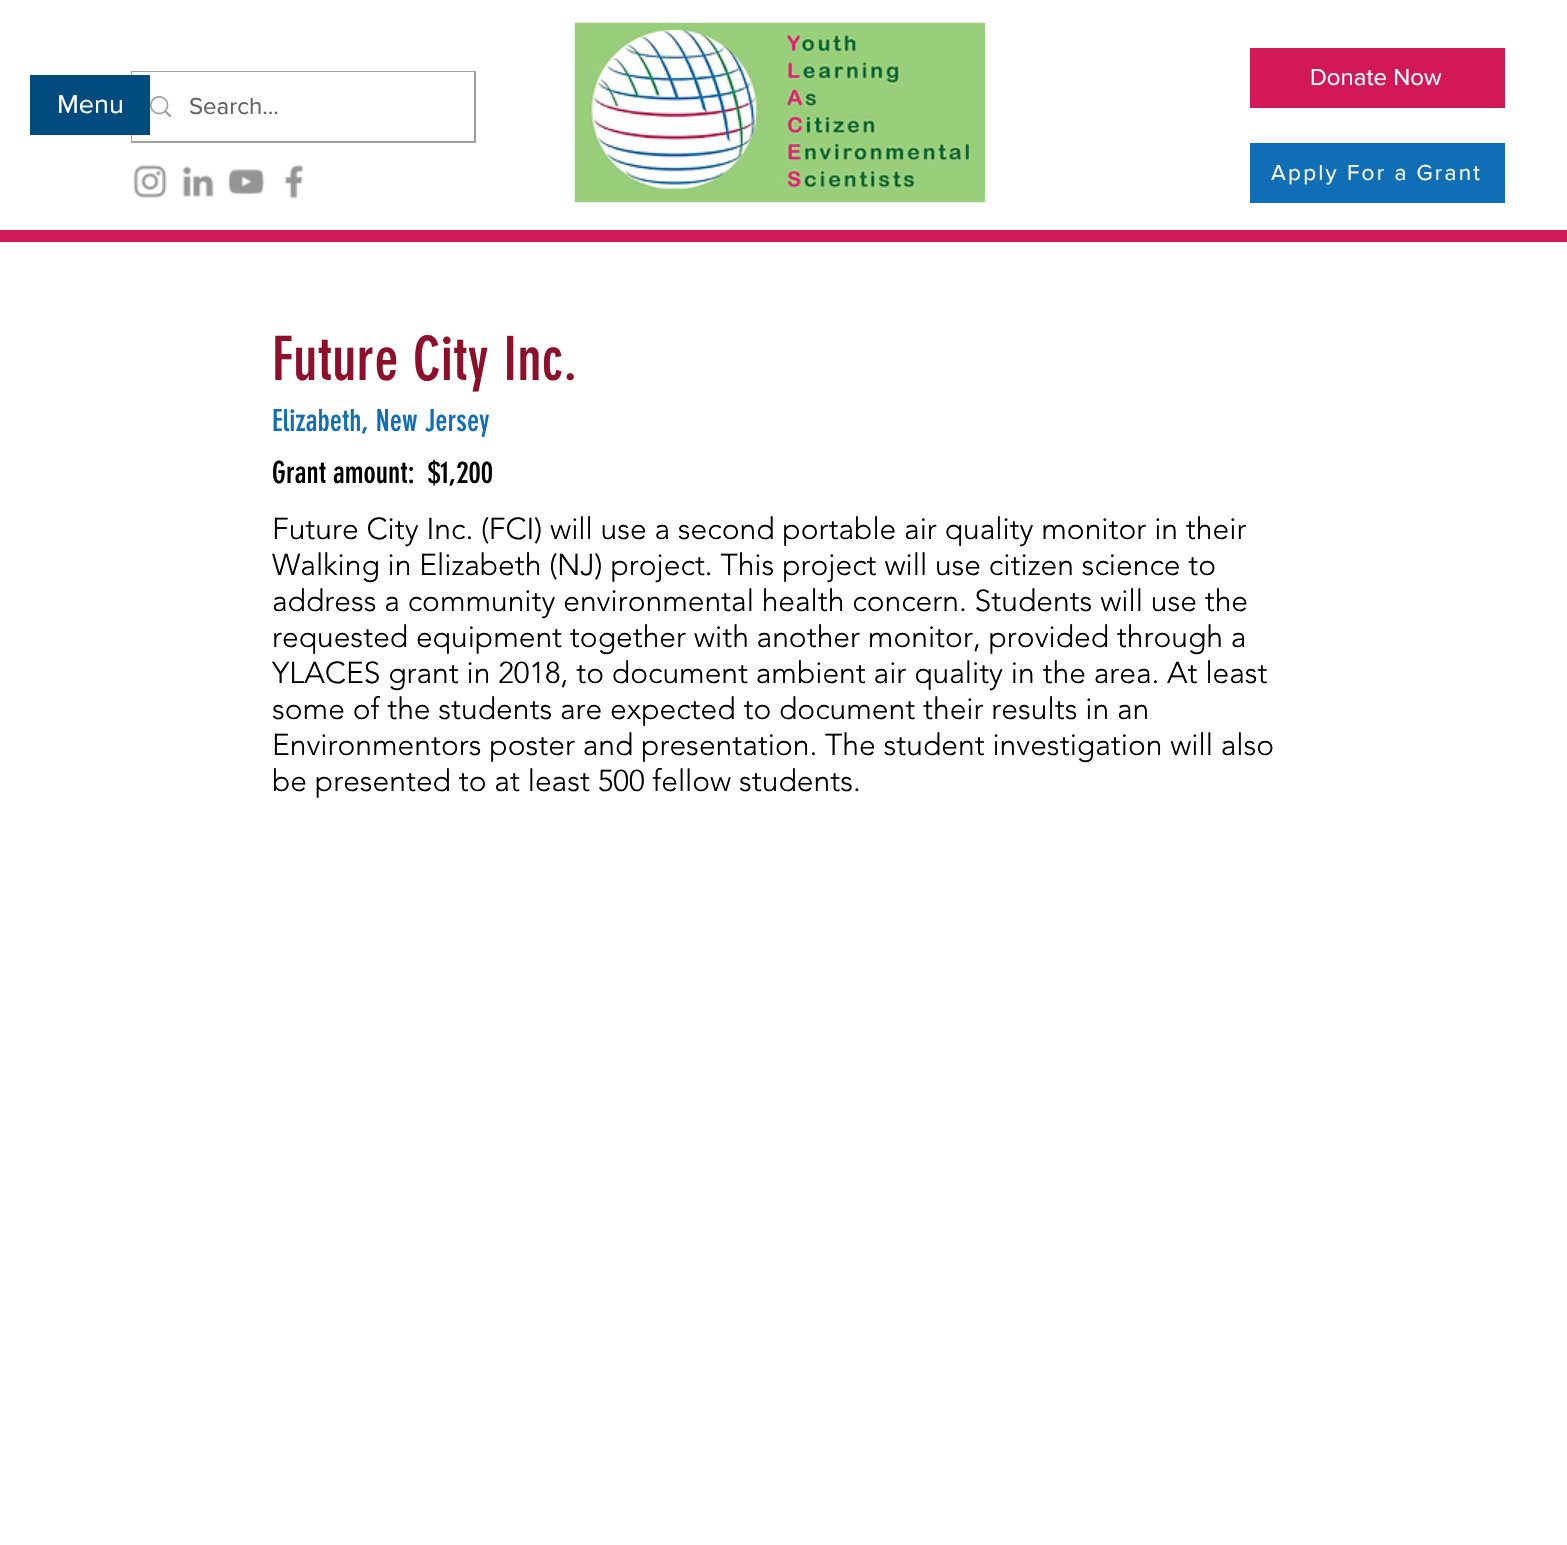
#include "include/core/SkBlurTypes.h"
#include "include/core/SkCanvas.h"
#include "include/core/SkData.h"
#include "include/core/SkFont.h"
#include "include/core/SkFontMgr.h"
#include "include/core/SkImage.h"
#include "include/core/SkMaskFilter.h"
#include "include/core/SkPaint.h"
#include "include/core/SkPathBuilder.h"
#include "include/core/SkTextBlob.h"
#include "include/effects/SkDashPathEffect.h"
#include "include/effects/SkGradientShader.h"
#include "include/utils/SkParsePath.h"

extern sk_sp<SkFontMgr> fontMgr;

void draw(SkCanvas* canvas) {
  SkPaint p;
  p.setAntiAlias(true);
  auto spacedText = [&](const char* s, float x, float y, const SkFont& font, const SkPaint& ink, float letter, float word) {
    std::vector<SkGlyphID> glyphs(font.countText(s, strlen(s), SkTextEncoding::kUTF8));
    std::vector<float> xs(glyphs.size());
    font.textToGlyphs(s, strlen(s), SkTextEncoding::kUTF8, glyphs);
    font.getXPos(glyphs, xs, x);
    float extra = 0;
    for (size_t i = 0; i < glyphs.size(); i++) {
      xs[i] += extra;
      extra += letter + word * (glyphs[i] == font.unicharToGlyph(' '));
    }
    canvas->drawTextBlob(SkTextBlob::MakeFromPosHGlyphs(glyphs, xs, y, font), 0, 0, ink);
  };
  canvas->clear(SK_ColorWHITE);
  p.setStyle(SkPaint::kStroke_Style);
  p.setStrokeWidth(2);
  p.setColor(SkColorSetRGB(160, 160, 160));
  canvas->drawRect(SkRect::MakeLTRB(132, 72, 475, 142), p);
  p.setStyle(SkPaint::kFill_Style);
  p.setColor(SK_ColorWHITE);
  canvas->drawRect(SkRect::MakeLTRB(132, 72, 474, 141), p);
  p.setColor(SkColorSetRGB(1, 75, 126));
  canvas->drawRect(SkRect::MakeLTRB(30, 75, 150, 135), p);
  canvas->drawImageRect(SkImages::DeferredFromEncodedData(SkData::MakeFromFileName("images/1.png")), SkRect::MakeLTRB(574, 22, 986, 203), SkSamplingOptions());
  p.setColor(SkColorSetRGB(211, 24, 88));
  canvas->drawRect(SkRect::MakeLTRB(1250, 48, 1505, 108), p);
  canvas->drawImageRect(SkImages::DeferredFromEncodedData(SkData::MakeFromFileName("images/2.png")), SkRect::MakeLTRB(150, 96, 171, 117), SkSamplingOptions());
  canvas->drawImageRect(SkImages::DeferredFromEncodedData(SkData::MakeFromFileName("images/3.png")), SkRect::MakeLTRB(133, 164, 167, 199), SkSamplingOptions());
  canvas->drawImageRect(SkImages::DeferredFromEncodedData(SkData::MakeFromFileName("images/4.png")), SkRect::MakeLTRB(182, 166, 214, 197), SkSamplingOptions());
  canvas->drawImageRect(SkImages::DeferredFromEncodedData(SkData::MakeFromFileName("images/5.png")), SkRect::MakeLTRB(228, 169, 265, 195), SkSamplingOptions());
  canvas->drawImageRect(SkImages::DeferredFromEncodedData(SkData::MakeFromFileName("images/6.png")), SkRect::MakeLTRB(284, 164, 304, 199), SkSamplingOptions());
  p.setColor(SkColorSetRGB(15, 110, 181));
  canvas->drawRect(SkRect::MakeLTRB(1250, 143, 1505, 203), p);
  p.setColor(SkColorSetRGB(211, 24, 88));
  canvas->drawRect(SkRect::MakeLTRB(0, 230, 1567, 242), p);
  SkFont font1(fontMgr->matchFamilyStyle("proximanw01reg", SkFontStyle::Normal()), 27);
  font1.setSubpixel(true);
  p.setColor(SK_ColorWHITE);
  canvas->drawString("Menu", 57, 113, font1, p);
  SkFont font2(fontMgr->matchFamilyStyle("proximanw01reg", SkFontStyle::Normal()), 24);
  font2.setSubpixel(true);
  canvas->drawString("Donate Now", 1310, 85, font2, p);
  p.setColor(SkColorSetRGB(96, 96, 96));
  canvas->drawString("Search...", 189, 114, font2, p);
  SkFont font3(fontMgr->matchFamilyStyle("proximanw01reg", SkFontStyle::Normal()), 22.5f);
  font3.setSubpixel(true);
  p.setColor(SK_ColorWHITE);
  spacedText("Apply For a Grant", 1271, 180, font3, p, 2.25f, 0);
  SkFont font4(fontMgr->matchFamilyStyle("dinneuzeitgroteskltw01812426", SkFontStyle::Normal()), 60);
  font4.setSubpixel(true);
  p.setColor(SkColorSetRGB(141, 15, 41));
  canvas->drawString("Future City Inc.", 272, 380, font4, p);
  SkFont font5(fontMgr->matchFamilyStyle("dinneuzeitgroteskltw01812426", SkFontStyle::Normal()), 30);
  font5.setSubpixel(true);
  p.setColor(SkColorSetRGB(15, 110, 181));
  canvas->drawString("Elizabeth, New Jersey", 272, 431, font5, p);
  p.setColor(SK_ColorBLACK);
  canvas->drawString("Grant amount:", 272, 483, font5, p);
  canvas->drawString("$1,200", 428, 483, font5, p);
  SkFont font6(fontMgr->matchFamilyStyle("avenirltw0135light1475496", SkFontStyle(300, SkFontStyle::kNormal_Width, SkFontStyle::kUpright_Slant)), 30);
  font6.setSubpixel(true);
  canvas->drawString("Future City Inc. (FCI) will use a second portable air quality monitor in their", 272, 539, font6, p);
  canvas->drawString("Walking in Elizabeth (NJ) project. This project will use citizen science to", 272, 575, font6, p);
  canvas->drawString("address a community environmental health concern. Students will use the", 272, 611, font6, p);
  canvas->drawString("requested equipment together with another monitor, provided through a", 272, 647, font6, p);
  canvas->drawString("YLACES grant in 2018, to document ambient air quality in the area. At least", 272, 683, font6, p);
  canvas->drawString("some of the students are expected to document their results in an", 272, 719, font6, p);
  canvas->drawString("Environmentors poster and presentation. The student investigation will also", 272, 755, font6, p);
  canvas->drawString("be presented to at least 500 fellow students.", 272, 791, font6, p);
}
